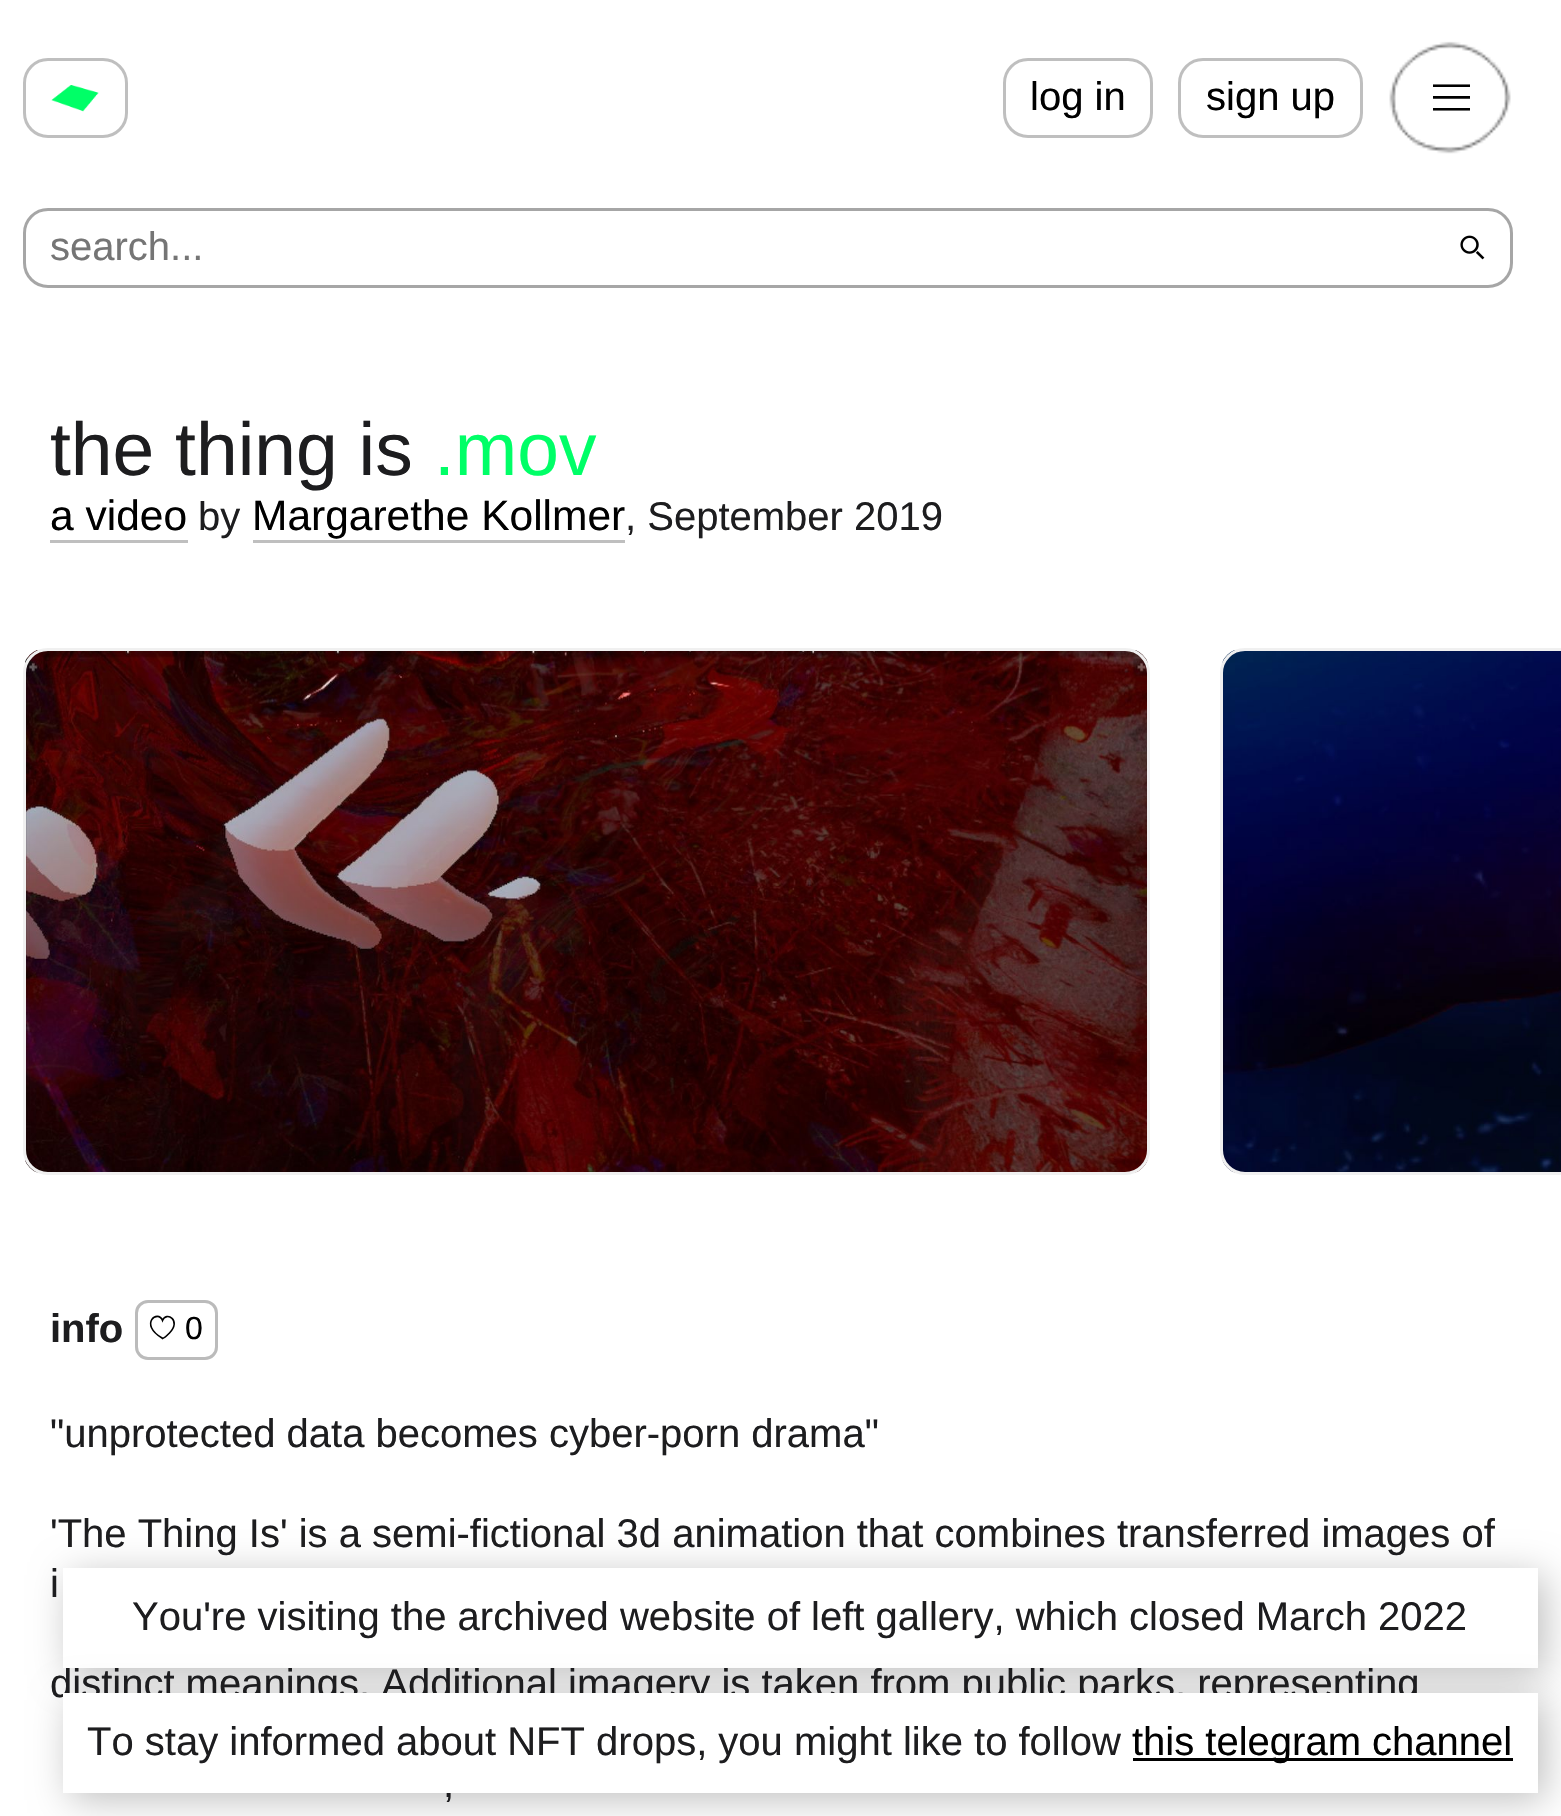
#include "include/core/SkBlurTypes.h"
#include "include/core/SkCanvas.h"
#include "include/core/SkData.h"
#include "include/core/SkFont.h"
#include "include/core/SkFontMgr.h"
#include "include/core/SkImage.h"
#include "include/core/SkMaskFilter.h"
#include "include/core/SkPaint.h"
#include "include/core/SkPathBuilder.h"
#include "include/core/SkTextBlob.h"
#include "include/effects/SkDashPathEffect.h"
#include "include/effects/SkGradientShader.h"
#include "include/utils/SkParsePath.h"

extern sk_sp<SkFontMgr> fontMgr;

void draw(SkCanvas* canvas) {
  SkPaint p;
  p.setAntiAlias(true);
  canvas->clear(SK_ColorWHITE);
  p.setStyle(SkPaint::kStroke_Style);
  p.setStrokeWidth(3);
  p.setColor(SkColorSetRGB(191, 191, 191));
  canvas->drawRoundRect(SkRect::MakeLTRB(24.5f, 59.5f, 126.5f, 136.5f), 23.5f, 23.5f, p);
  canvas->drawImageRect(SkImages::DeferredFromEncodedData(SkData::MakeFromFileName("images/1.png")), SkRect::MakeLTRB(51, 85, 99, 112), SkSamplingOptions());
  canvas->drawRoundRect(SkRect::MakeLTRB(1004.5f, 59.5f, 1151.5f, 136.5f), 23.5f, 23.5f, p);
  canvas->drawRoundRect(SkRect::MakeLTRB(1179.5f, 59.5f, 1361.5f, 136.5f), 23.5f, 23.5f, p);
  canvas->drawImageRect(SkImages::DeferredFromEncodedData(SkData::MakeFromFileName("images/2.png")), SkRect::MakeLTRB(1433, 84, 1470, 111), SkSamplingOptions());
  canvas->drawImageRect(SkImages::DeferredFromEncodedData(SkData::MakeFromFileName("images/3.png")), SkRect::MakeLTRB(1389, 41, 1511, 154), SkSamplingOptions());
  canvas->drawImageRect(SkImages::DeferredFromEncodedData(SkData::MakeFromFileName("images/4.png")), SkRect::MakeLTRB(1460, 235, 1485, 260), SkSamplingOptions());
  p.setColor(SkColorSetRGB(166, 166, 166));
  canvas->drawRoundRect(SkRect::MakeLTRB(24.5f, 209.5f, 1511.5f, 286.5f), 23.5f, 23.5f, p);
  p.setStyle(SkPaint::kFill_Style);
  p.setColor(SkColorSetRGB(191, 191, 191));
  canvas->drawRect(SkRect::MakeLTRB(50, 540, 188, 543), p);
  canvas->drawRect(SkRect::MakeLTRB(253, 540, 625, 543), p);
  canvas->drawImageRect(SkImages::DeferredFromEncodedData(SkData::MakeFromFileName("images/5.png")), SkRect::MakeLTRB(25, 650, 1148, 1173), SkSamplingOptions());
  p.setStyle(SkPaint::kStroke_Style);
  p.setColor(SkColorSetRGB(240, 240, 240));
  canvas->drawRoundRect(SkRect::MakeLTRB(24.5f, 649.5f, 1148.5f, 1173.5f), 23.5f, 23.5f, p);
  canvas->drawImageRect(SkImages::DeferredFromEncodedData(SkData::MakeFromFileName("images/6.png")), SkRect::MakeLTRB(1222, 650, 1561, 1173), SkSamplingOptions());
  canvas->drawRoundRect(SkRect::MakeLTRB(1221.5f, 649.5f, 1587.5f, 1173.5f), 23.5f, 23.5f, p);
  p.setColor(SkColorSetRGB(187, 187, 187));
  canvas->drawRoundRect(SkRect::MakeLTRB(136.5f, 1301.5f, 216.5f, 1358.5f), 11.5f, 11.5f, p);
  p.setStrokeWidth(1.6f);
  p.setColor(SK_ColorBLACK);
  canvas->drawPath(SkPathBuilder().moveTo(162, 1338).cubicTo(138.5f, 1324, 158, 1309, 162.5f, 1320.5f).cubicTo(166, 1311, 182, 1320, 169.5f, 1333).cubicTo(168.5f, 1334, 164, 1338, 162.5f, 1338.5f).close().detach(), p);
  p.setStyle(SkPaint::kFill_Style);
  p.setColor(SkColorSetARGB(64, 0, 0, 0));
  p.setMaskFilter(SkMaskFilter::MakeBlur(kNormal_SkBlurStyle, 19));
  canvas->drawRect(SkRect::MakeLTRB(70, 1575, 1545, 1675), p);
  p.setMaskFilter(nullptr);
  p.setColor(SK_ColorWHITE);
  canvas->drawRect(SkRect::MakeLTRB(63, 1568, 1538, 1668), p);
  p.setColor(SkColorSetARGB(64, 0, 0, 0));
  p.setMaskFilter(SkMaskFilter::MakeBlur(kNormal_SkBlurStyle, 19));
  canvas->drawRect(SkRect::MakeLTRB(70, 1700, 1545, 1800), p);
  p.setMaskFilter(nullptr);
  SkFont font1(fontMgr->matchFamilyStyle("Liberation Sans", SkFontStyle::Normal()), 40);
  font1.setSubpixel(true);
  p.setColor(SK_ColorBLACK);
  canvas->drawString("log in", 1030, 110, font1, p);
  canvas->drawString("sign up", 1206, 110, font1, p);
  p.setColor(SkColorSetRGB(117, 117, 117));
  canvas->drawString("search...", 50, 260, font1, p);
  SkFont font2(fontMgr->matchFamilyStyle("Liberation Sans", SkFontStyle::Normal()), 75);
  font2.setSubpixel(true);
  p.setColor(SkColorSetRGB(29, 29, 31));
  canvas->drawString("the thing is", 50, 475, font2, p);
  p.setColor(SkColorSetRGB(0, 255, 103));
  canvas->drawString(".mov", 434, 475, font2, p);
  SkFont font3(fontMgr->matchFamilyStyle("Liberation Sans", SkFontStyle::Normal()), 42.5f);
  font3.setSubpixel(true);
  p.setColor(SK_ColorBLACK);
  canvas->drawString("a video", 50, 530, font3, p);
  p.setColor(SkColorSetRGB(29, 29, 31));
  canvas->drawString("by", 198, 530, font1, p);
  p.setColor(SK_ColorBLACK);
  canvas->drawString("Margarethe Kollmer", 252, 530, font3, p);
  p.setColor(SkColorSetRGB(29, 29, 31));
  canvas->drawString(", September 2019", 625, 530, font1, p);
  SkFont font4(fontMgr->matchFamilyStyle("Liberation Sans", SkFontStyle::Bold()), 40);
  font4.setSubpixel(true);
  canvas->drawString("info", 50, 1342, font4, p);
  SkFont font5(fontMgr->matchFamilyStyle("Liberation Sans", SkFontStyle::Normal()), 32);
  font5.setSubpixel(true);
  p.setColor(SK_ColorBLACK);
  canvas->drawString("0", 185, 1339, font5, p);
  p.setColor(SkColorSetRGB(29, 29, 31));
  canvas->drawString("\"unprotected data becomes cyber-porn drama\"", 50, 1447, font1, p);
  canvas->drawString("'The Thing Is' is a semi-fictional 3d animation that combines transferred images of", 50, 1547, font1, p);
  canvas->drawString("i", 50, 1597, font1, p);
  canvas->drawString("distinct meanings. Additional imagery is taken from public parks, representing", 50, 1697, font1, p);
  canvas->drawString(",", 443, 1797, font1, p);
  canvas->drawString("You're visiting the archived website of left gallery, which closed March 2022", 132, 1630, font1, p);
  p.setColor(SK_ColorWHITE);
  canvas->drawRect(SkRect::MakeLTRB(63, 1693, 1538, 1793), p);
  p.setColor(SkColorSetRGB(29, 29, 31));
  canvas->drawString("To stay informed about NFT drops, you might like to follow", 87, 1755, font1, p);
  p.setColor(SK_ColorBLACK);
  canvas->drawRect(SkRect::MakeLTRB(1133, 1758, 1513, 1761), p);
  canvas->drawString("this telegram channel", 1132, 1755, font1, p);
}
